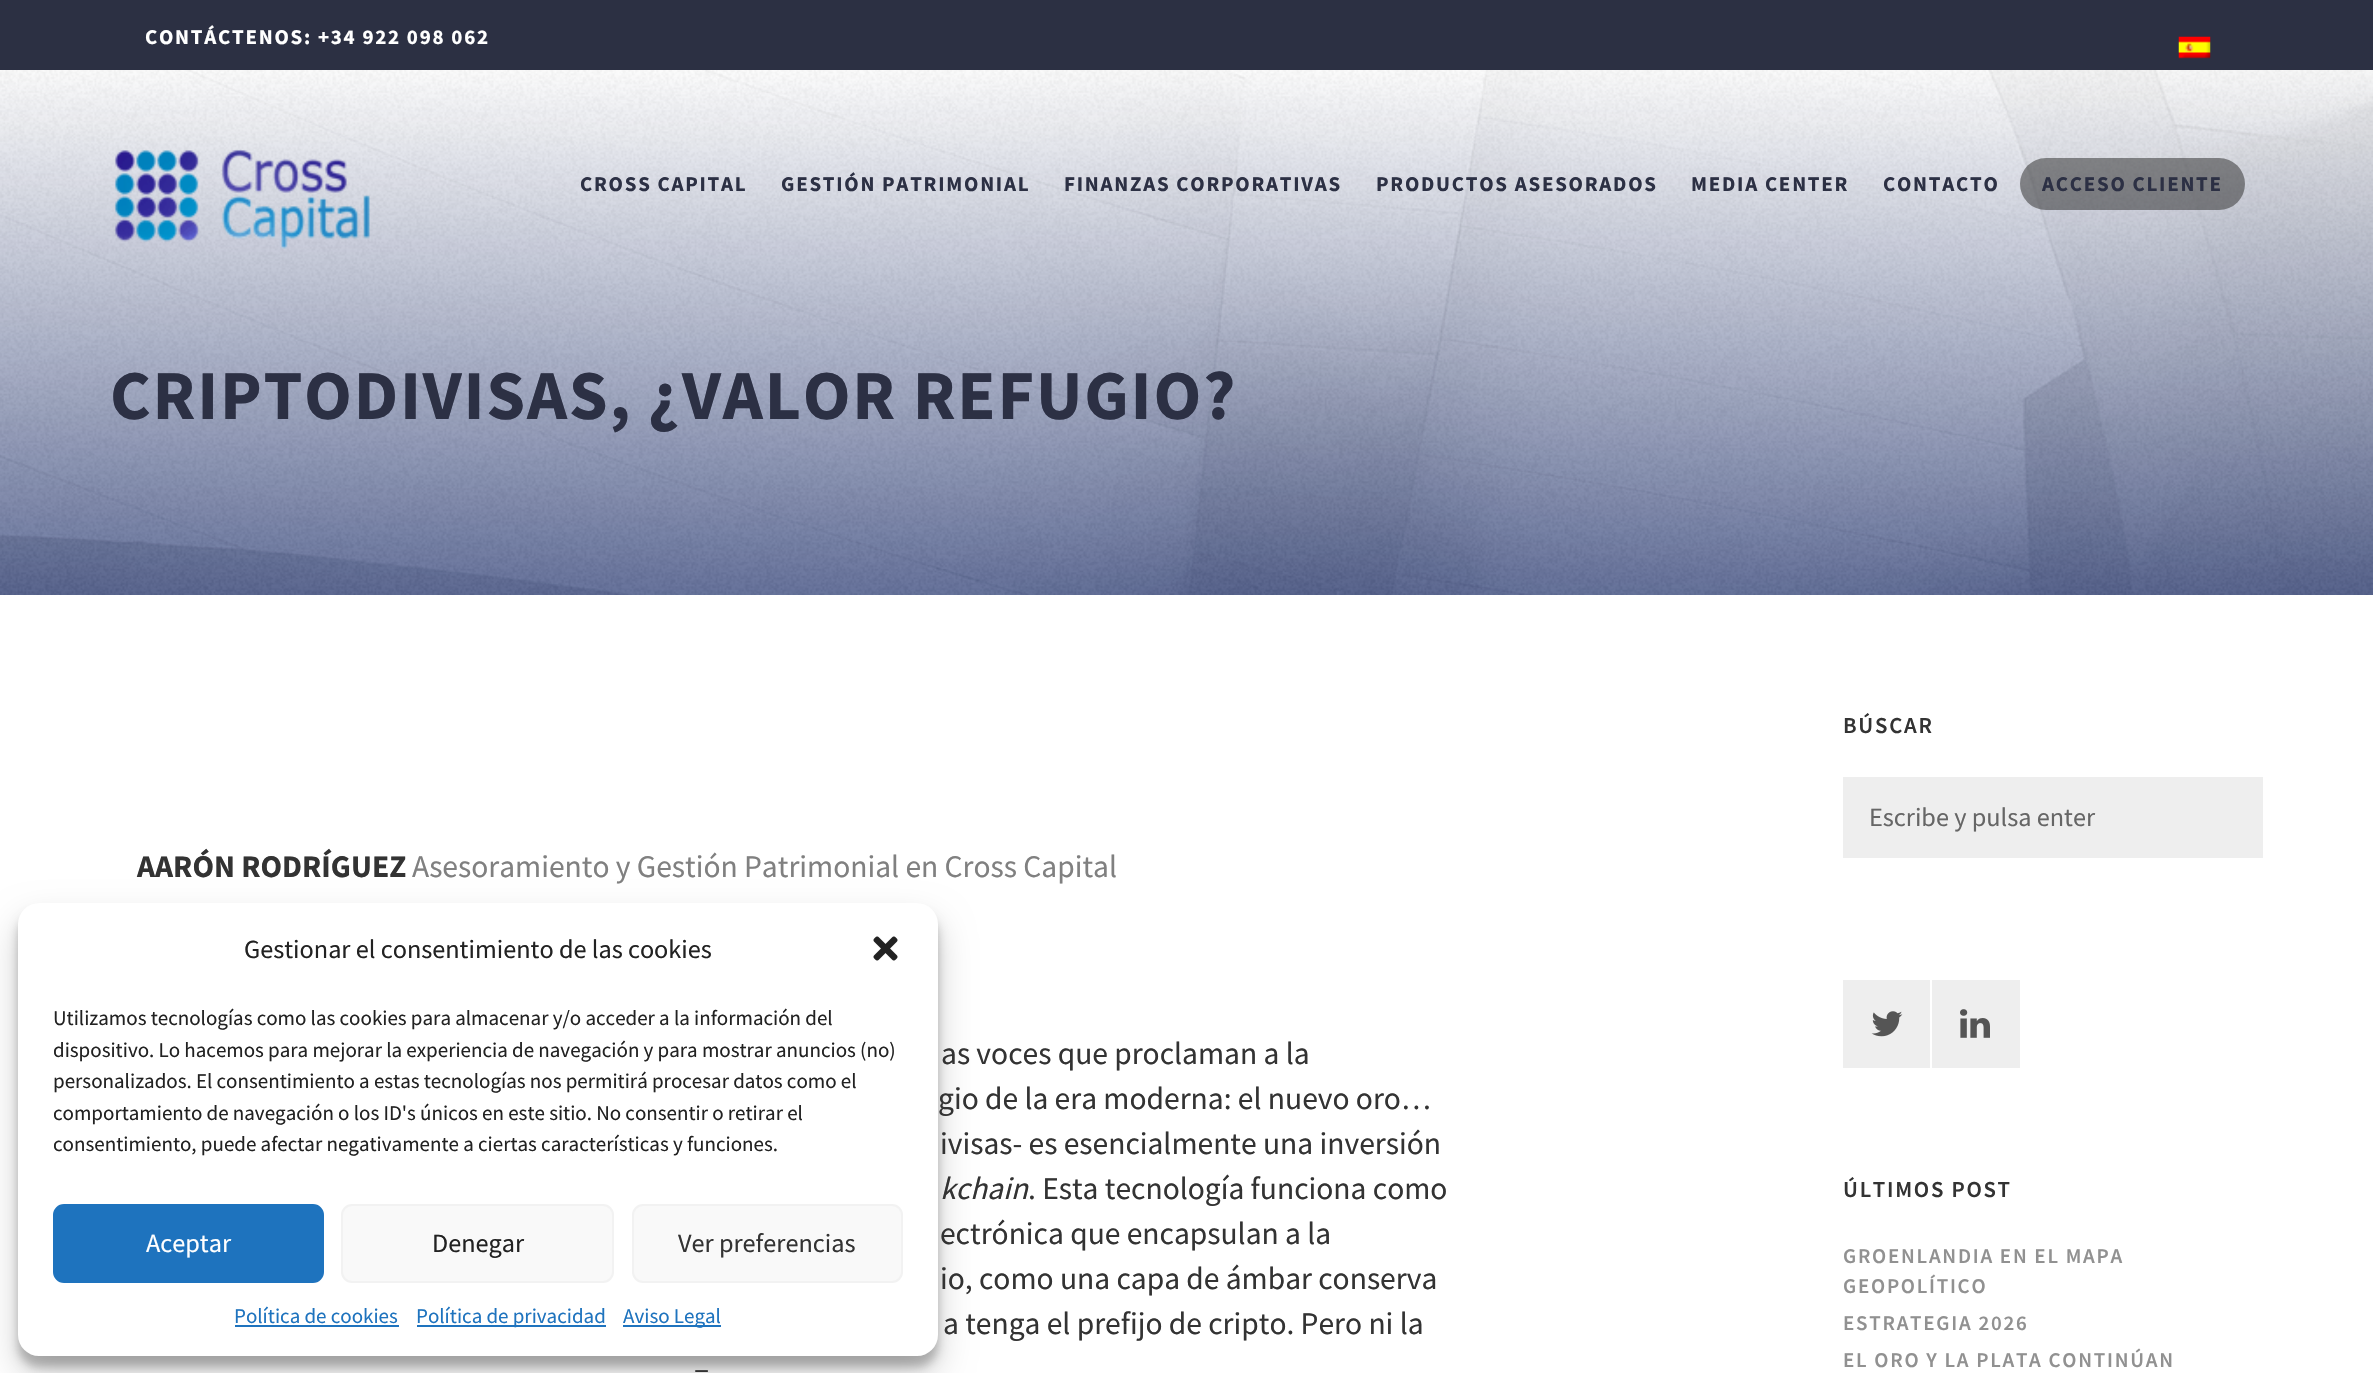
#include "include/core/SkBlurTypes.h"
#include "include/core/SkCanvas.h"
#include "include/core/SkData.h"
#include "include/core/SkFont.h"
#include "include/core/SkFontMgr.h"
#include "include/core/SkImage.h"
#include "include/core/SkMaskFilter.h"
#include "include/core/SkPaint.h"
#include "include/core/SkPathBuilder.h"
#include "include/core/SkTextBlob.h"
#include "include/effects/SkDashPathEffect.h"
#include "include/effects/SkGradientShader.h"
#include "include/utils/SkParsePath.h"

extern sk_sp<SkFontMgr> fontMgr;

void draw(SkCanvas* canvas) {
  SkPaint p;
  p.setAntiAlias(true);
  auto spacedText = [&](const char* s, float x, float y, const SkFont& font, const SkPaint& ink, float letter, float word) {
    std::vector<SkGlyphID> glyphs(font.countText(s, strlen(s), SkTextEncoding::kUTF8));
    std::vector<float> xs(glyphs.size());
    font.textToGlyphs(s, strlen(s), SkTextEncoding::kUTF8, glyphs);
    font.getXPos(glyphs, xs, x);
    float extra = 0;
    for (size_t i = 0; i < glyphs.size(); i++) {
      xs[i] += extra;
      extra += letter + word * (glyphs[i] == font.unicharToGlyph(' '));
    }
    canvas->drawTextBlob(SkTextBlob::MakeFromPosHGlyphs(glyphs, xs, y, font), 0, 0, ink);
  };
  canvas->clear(SK_ColorWHITE);
  p.setColor(SkColorSetRGB(44, 48, 67));
  canvas->drawRect(SkRect::MakeLTRB(0, 0, 2373, 70), p);
  canvas->drawImageRect(SkImages::DeferredFromEncodedData(SkData::MakeFromFileName("images/1.png")), SkRect::MakeLTRB(2178, 36, 2211, 59), SkSamplingOptions());
  canvas->drawImageRect(SkImages::DeferredFromEncodedData(SkData::MakeFromFileName("images/3.png")), SkRect::MakeLTRB(0, 70, 2373, 595), SkSamplingOptions());
  canvas->drawImageRect(SkImages::DeferredFromEncodedData(SkData::MakeFromFileName("images/4.png")), SkRect::MakeLTRB(0, 70, 2373, 595), SkSamplingOptions());
  canvas->drawImageRect(SkImages::DeferredFromEncodedData(SkData::MakeFromFileName("images/2.png")), SkRect::MakeLTRB(114, 149, 370, 249), SkSamplingOptions());
  p.setColor(SkColorSetARGB(138, 51, 51, 51));
  canvas->drawRoundRect(SkRect::MakeLTRB(2020, 158, 2245, 210), 26, 26, p);
  p.setColor(SkColorSetRGB(238, 238, 238));
  canvas->drawRect(SkRect::MakeLTRB(1843, 777, 2263, 858), p);
  canvas->drawRect(SkRect::MakeLTRB(1843, 980, 1930, 1068), p);
  canvas->drawImageRect(SkImages::DeferredFromEncodedData(SkData::MakeFromFileName("images/5.png")), SkRect::MakeLTRB(1871, 1011, 1903, 1037), SkSamplingOptions());
  canvas->drawRect(SkRect::MakeLTRB(1932, 980, 2020, 1068), p);
  canvas->drawImageRect(SkImages::DeferredFromEncodedData(SkData::MakeFromFileName("images/6.png")), SkRect::MakeLTRB(1960, 1009, 1990, 1038), SkSamplingOptions());
  p.setColor(SkColorSetARGB(59, 0, 0, 0));
  p.setMaskFilter(SkMaskFilter::MakeBlur(kNormal_SkBlurStyle, 5));
  canvas->drawRoundRect(SkRect::MakeLTRB(18, 914, 938, 1367), 21, 21, p);
  p.setMaskFilter(nullptr);
  p.setColor(SkColorSetARGB(48, 0, 0, 0));
  p.setMaskFilter(SkMaskFilter::MakeBlur(kNormal_SkBlurStyle, 17.5f));
  canvas->drawRoundRect(SkRect::MakeLTRB(18, 921, 938, 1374), 21, 21, p);
  p.setMaskFilter(nullptr);
  p.setColor(SK_ColorWHITE);
  canvas->drawRoundRect(SkRect::MakeLTRB(18, 903, 938, 1356), 21, 21, p);
  canvas->drawImageRect(SkImages::DeferredFromEncodedData(SkData::MakeFromFileName("images/7.png")), SkRect::MakeLTRB(873, 936, 898, 961), SkSamplingOptions());
  p.setColor(SkColorSetRGB(30, 115, 190));
  canvas->drawRoundRect(SkRect::MakeLTRB(54, 1205, 323, 1282), 10, 10, p);
  p.setStyle(SkPaint::kStroke_Style);
  p.setStrokeWidth(2);
  canvas->drawRoundRect(SkRect::MakeLTRB(54, 1205, 323, 1282), 10, 10, p);
  p.setStyle(SkPaint::kFill_Style);
  p.setColor(SkColorSetRGB(249, 249, 249));
  canvas->drawRoundRect(SkRect::MakeLTRB(342, 1205, 613, 1282), 10, 10, p);
  p.setStyle(SkPaint::kStroke_Style);
  p.setColor(SkColorSetRGB(242, 242, 242));
  canvas->drawRoundRect(SkRect::MakeLTRB(342, 1205, 613, 1282), 10, 10, p);
  p.setStyle(SkPaint::kFill_Style);
  p.setColor(SkColorSetRGB(249, 249, 249));
  canvas->drawRoundRect(SkRect::MakeLTRB(633, 1205, 902, 1282), 10, 10, p);
  p.setStyle(SkPaint::kStroke_Style);
  p.setColor(SkColorSetRGB(242, 242, 242));
  canvas->drawRoundRect(SkRect::MakeLTRB(633, 1205, 902, 1282), 10, 10, p);
  p.setStyle(SkPaint::kFill_Style);
  p.setColor(SkColorSetRGB(30, 115, 190));
  canvas->drawRect(SkRect::MakeLTRB(235, 1325, 399, 1327), p);
  canvas->drawRect(SkRect::MakeLTRB(417, 1325, 606, 1327), p);
  canvas->drawRect(SkRect::MakeLTRB(623, 1325, 721, 1327), p);
  SkFont font1(fontMgr->matchFamilyStyle("Source Sans Pro", SkFontStyle::Bold()), 21);
  font1.setSubpixel(true);
  p.setColor(SK_ColorWHITE);
  spacedText("CONTÁCTENOS: +34 922 098 062", 145, 44, font1, p, 1.75f, 0);
  p.setColor(SkColorSetRGB(44, 48, 68));
  spacedText("CROSS CAPITAL", 580, 191, font1, p, 1.75f, 0);
  spacedText("GESTIÓN PATRIMONIAL", 781, 191, font1, p, 1.75f, 0);
  spacedText("FINANZAS CORPORATIVAS", 1064, 191, font1, p, 1.75f, 0);
  spacedText("PRODUCTOS ASESORADOS", 1376, 191, font1, p, 1.75f, 0);
  spacedText("MEDIA CENTER", 1691, 191, font1, p, 1.75f, 0);
  spacedText("CONTACTO", 1883, 191, font1, p, 1.75f, 0);
  spacedText("ACCESO CLIENTE", 2042, 191, font1, p, 1.75f, 0);
  SkFont font2(fontMgr->matchFamilyStyle("Source Sans Pro", SkFontStyle::Bold()), 70);
  font2.setSubpixel(true);
  spacedText("CRIPTODIVISAS, ¿VALOR REFUGIO?", 110, 419, font2, p, 1.75f, 0);
  SkFont font3(fontMgr->matchFamilyStyle("Source Sans Pro", SkFontStyle::Bold()), 31.5f);
  font3.setSubpixel(true);
  p.setColor(SkColorSetRGB(51, 51, 51));
  canvas->drawString("AARÓN RODRÍGUEZ", 137, 877, font3, p);
  SkFont font4(fontMgr->matchFamilyStyle("Source Sans Pro", SkFontStyle::Normal()), 31.5f);
  font4.setSubpixel(true);
  p.setColor(SkColorSetRGB(128, 128, 128));
  canvas->drawString("Asesoramiento y Gestión Patrimonial en Cross Capital", 412, 877, font4, p);
  p.setColor(SkColorSetRGB(51, 51, 51));
  canvas->drawString("as voces que proclaman a la", 941, 1064, font4, p);
  canvas->drawString("gio de la era moderna: el nuevo oro…", 938, 1109, font4, p);
  canvas->drawString("ivisas- es esencialmente una inversión", 940, 1154, font4, p);
  SkFont font5(fontMgr->matchFamilyStyle("Source Sans Pro", SkFontStyle::Italic()), 31.5f);
  font5.setSubpixel(true);
  canvas->drawString("kchain", 940, 1199, font5, p);
  canvas->drawString(". Esta tecnología funciona como", 1028, 1199, font4, p);
  canvas->drawString("ectrónica que encapsulan a la", 940, 1244, font4, p);
  canvas->drawString("io, como una capa de ámbar conserva", 940, 1289, font4, p);
  canvas->drawString("a tenga el prefijo de cripto. Pero ni la", 943, 1334, font4, p);
  canvas->drawString("–", 694, 1379, font4, p);
  SkFont font6(fontMgr->matchFamilyStyle("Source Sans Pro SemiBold", SkFontStyle(600, SkFontStyle::kNormal_Width, SkFontStyle::kUpright_Slant)), 22.75f);
  font6.setSubpixel(true);
  spacedText("BÚSCAR", 1843, 733, font6, p, 1.75f, 0);
  SkFont font7(fontMgr->matchFamilyStyle("Source Sans Pro", SkFontStyle::Normal()), 26.25f);
  font7.setSubpixel(true);
  p.setColor(SkColorSetRGB(102, 102, 102));
  canvas->drawString("Escribe y pulsa enter", 1869, 826, font7, p);
  p.setColor(SkColorSetRGB(51, 51, 51));
  spacedText("ÚLTIMOS POST", 1843, 1197, font6, p, 1.75f, 0);
  SkFont font8(fontMgr->matchFamilyStyle("Source Sans Pro SemiBold", SkFontStyle(600, SkFontStyle::kNormal_Width, SkFontStyle::kUpright_Slant)), 21);
  font8.setSubpixel(true);
  p.setColor(SkColorSetRGB(145, 145, 145));
  spacedText("GROENLANDIA EN EL MAPA", 1843, 1263, font8, p, 1.75f, 0);
  spacedText("GEOPOLÍTICO", 1843, 1293, font8, p, 1.75f, 0);
  spacedText("ESTRATEGIA 2026", 1843, 1330, font8, p, 1.75f, 0);
  spacedText("EL ORO Y LA PLATA CONTINÚAN", 1843, 1367, font8, p, 1.75f, 0);
  p.setColor(SkColorSetRGB(34, 34, 34));
  canvas->drawString("Gestionar el consentimiento de las cookies", 244, 958, font7, p);
  SkFont font9(fontMgr->matchFamilyStyle("Source Sans Pro", SkFontStyle::Normal()), 21);
  font9.setSubpixel(true);
  canvas->drawString("Utilizamos tecnologías como las cookies para almacenar y/o acceder a la información del", 53, 1025, font9, p);
  canvas->drawString("dispositivo. Lo hacemos para mejorar la experiencia de navegación y para mostrar anuncios (no)", 53, 1057, font9, p);
  canvas->drawString("personalizados. El consentimiento a estas tecnologías nos permitirá procesar datos como el", 53, 1088, font9, p);
  canvas->drawString("comportamiento de navegación o los ID's únicos en este sitio. No consentir o retirar el", 53, 1120, font9, p);
  canvas->drawString("consentimiento, puede afectar negativamente a ciertas características y funciones.", 53, 1151, font9, p);
  p.setColor(SK_ColorWHITE);
  canvas->drawString("Aceptar", 146, 1252, font7, p);
  p.setColor(SkColorSetRGB(34, 34, 34));
  canvas->drawString("Denegar", 432, 1252, font7, p);
  p.setColor(SkColorSetRGB(51, 51, 51));
  canvas->drawString("Ver preferencias", 678, 1252, font7, p);
  p.setColor(SkColorSetRGB(30, 115, 190));
  canvas->drawString("Política de cookies", 234, 1323, font9, p);
  canvas->drawString("Política de privacidad", 416, 1323, font9, p);
  canvas->drawString("Aviso Legal", 623, 1323, font9, p);
}
